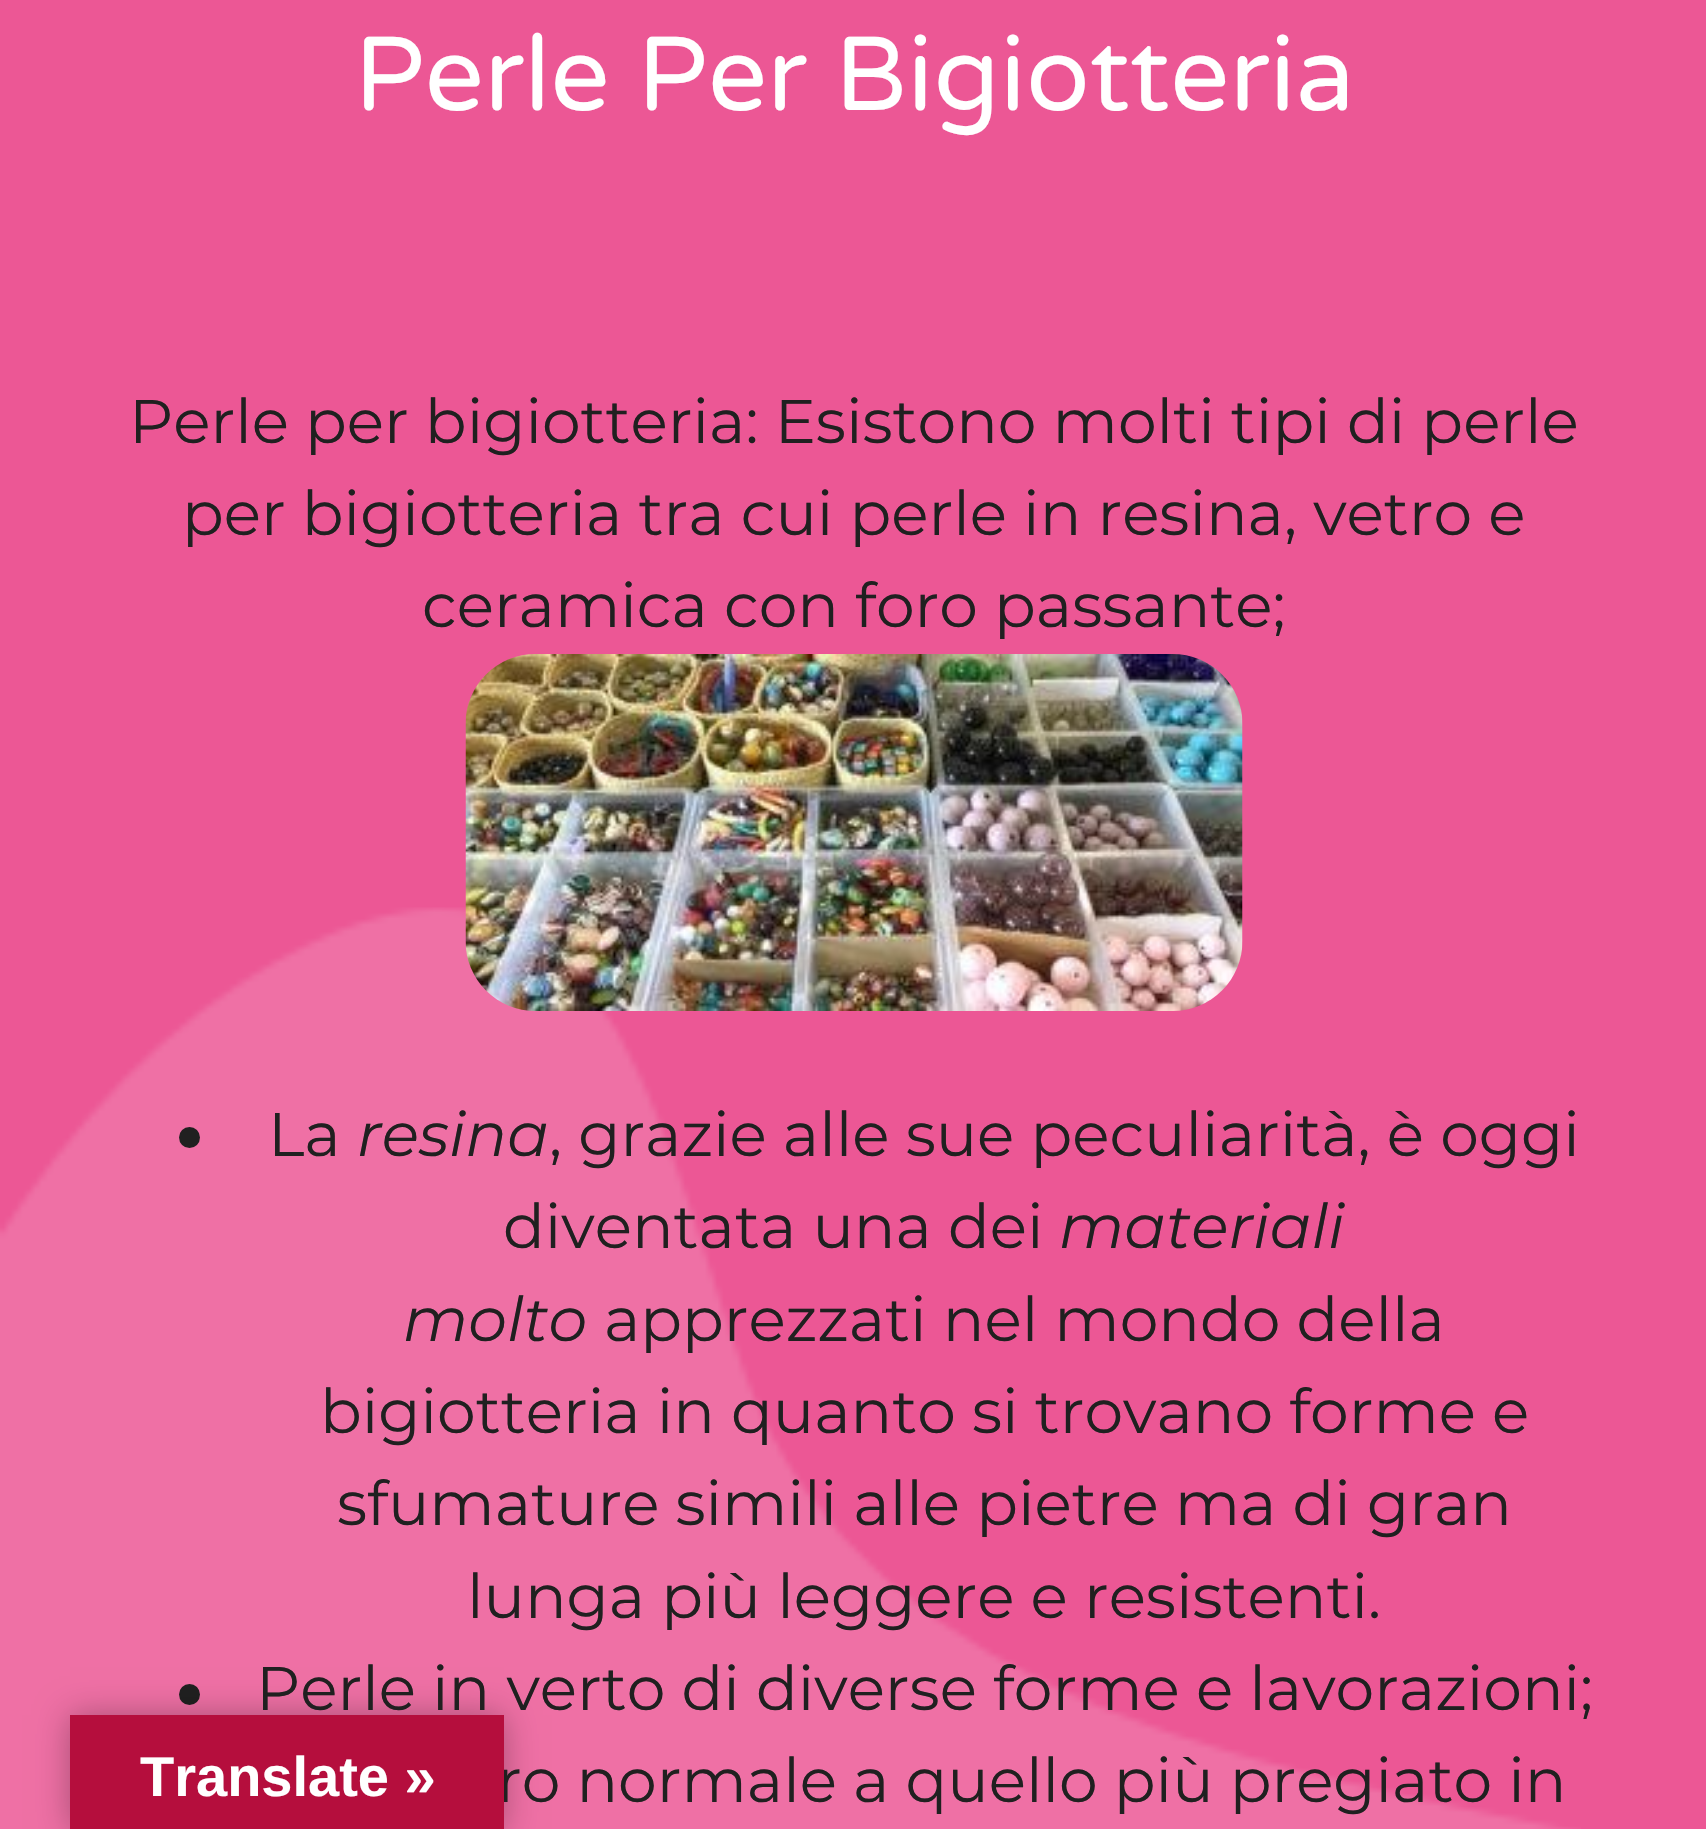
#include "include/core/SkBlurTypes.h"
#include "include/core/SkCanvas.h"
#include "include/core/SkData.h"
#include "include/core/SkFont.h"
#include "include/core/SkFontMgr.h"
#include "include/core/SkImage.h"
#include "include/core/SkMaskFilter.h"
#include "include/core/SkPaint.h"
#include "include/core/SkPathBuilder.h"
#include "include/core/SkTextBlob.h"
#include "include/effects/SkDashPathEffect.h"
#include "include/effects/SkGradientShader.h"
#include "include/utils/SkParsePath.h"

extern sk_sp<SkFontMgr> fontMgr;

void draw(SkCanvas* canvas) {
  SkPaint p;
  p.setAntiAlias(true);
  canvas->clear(SkColorSetRGB(236, 87, 149));
  canvas->drawImageRect(SkImages::DeferredFromEncodedData(SkData::MakeFromFileName("images/2.png")), SkRect::MakeLTRB(0, 907, 1581, 1829), SkSamplingOptions());
  canvas->drawImageRect(SkImages::DeferredFromEncodedData(SkData::MakeFromFileName("images/1.png")), SkRect::MakeLTRB(465, 654, 1243, 1011), SkSamplingOptions());
  p.setColor(SkColorSetRGB(32, 32, 32));
  canvas->drawCircle(189.5f, 1137.5f, 10.5f, p);
  canvas->drawCircle(189.5f, 1694.5f, 10.5f, p);
  p.setColor(SkColorSetARGB(77, 0, 0, 0));
  p.setMaskFilter(SkMaskFilter::MakeBlur(kNormal_SkBlurStyle, 16));
  canvas->drawRect(SkRect::MakeLTRB(70, 1715, 504, 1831), p);
  p.setMaskFilter(nullptr);
  SkFont font1(fontMgr->matchFamilyStyle("Varela Round", SkFontStyle::Normal()), 105);
  font1.setSubpixel(true);
  p.setColor(SK_ColorWHITE);
  canvas->drawString("Perle Per Bigiotteria", 354, 110, font1, p);
  SkFont font2(fontMgr->matchFamilyStyle("Montserrat", SkFontStyle::Normal()), 61.6f);
  font2.setSubpixel(true);
  p.setColor(SkColorSetRGB(32, 32, 32));
  canvas->drawString("Perle per bigiotteria: Esistono molti tipi di perle", 129, 443, font2, p);
  canvas->drawString("per bigiotteria tra cui perle in resina, vetro e", 182, 535, font2, p);
  canvas->drawString("ceramica con foro passante;", 422, 627, font2, p);
  canvas->drawString("La", 268, 1156, font2, p);
  SkFont font3(fontMgr->matchFamilyStyle("Montserrat", SkFontStyle::Italic()), 61.6f);
  font3.setSubpixel(true);
  canvas->drawString("resina", 357, 1156, font3, p);
  canvas->drawString(", grazie alle sue peculiarità, è oggi", 549, 1156, font2, p);
  canvas->drawString("diventata una dei", 503, 1248, font2, p);
  canvas->drawString("materiali", 1059, 1248, font3, p);
  canvas->drawString("molto", 403, 1341, font3, p);
  canvas->drawString("apprezzati nel mondo della", 604, 1341, font2, p);
  canvas->drawString("bigiotteria in quanto si trovano forme e", 320, 1433, font2, p);
  canvas->drawString("sfumature simili alle pietre ma di gran", 337, 1525, font2, p);
  canvas->drawString("lunga più leggere e resistenti.", 467, 1618, font2, p);
  canvas->drawString("Perle in verto di diverse forme e lavorazioni;", 256, 1710, font2, p);
  canvas->drawString("ro normale a quello più pregiato in", 497, 1802, font2, p);
  p.setColor(SkColorSetRGB(181, 14, 61));
  canvas->drawRect(SkRect::MakeLTRB(70, 1715, 504, 1829), p);
  SkFont font4(fontMgr->matchFamilyStyle("Liberation Sans", SkFontStyle::Bold()), 56);
  font4.setSubpixel(true);
  p.setColor(SK_ColorWHITE);
  canvas->drawString("Translate »", 140, 1796, font4, p);
}
